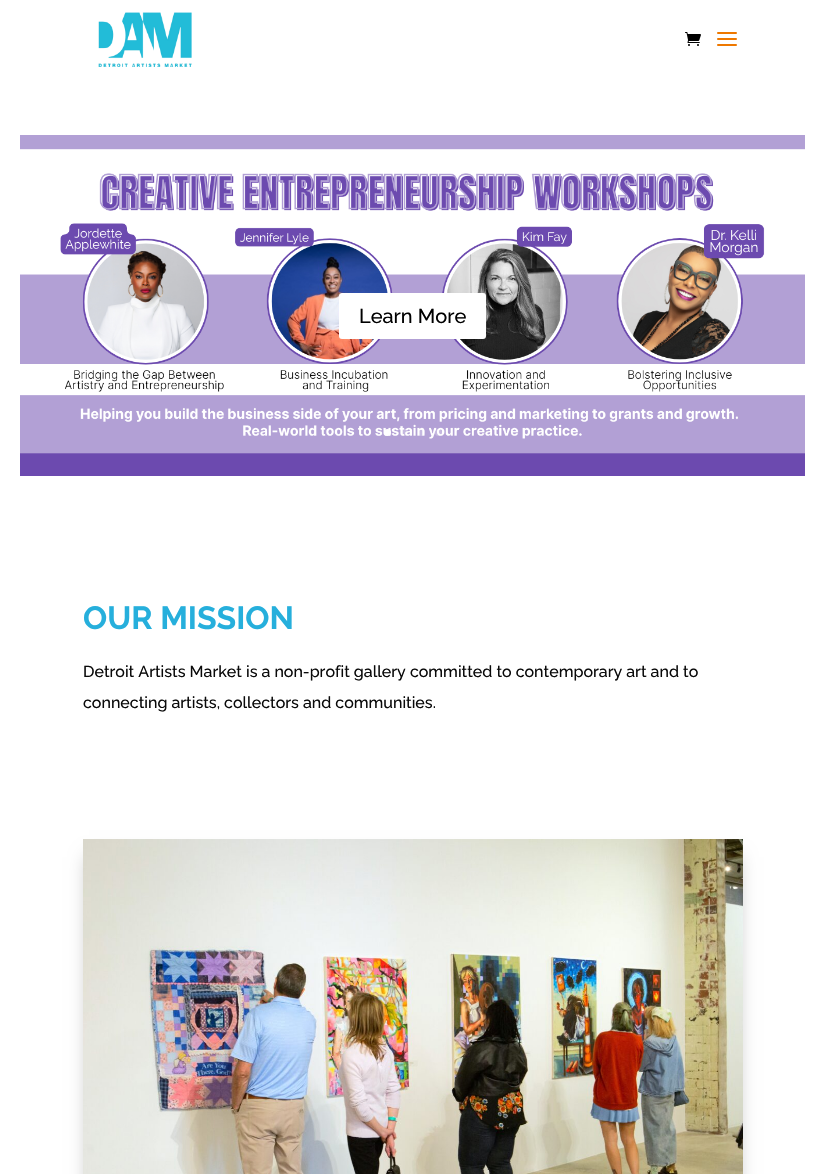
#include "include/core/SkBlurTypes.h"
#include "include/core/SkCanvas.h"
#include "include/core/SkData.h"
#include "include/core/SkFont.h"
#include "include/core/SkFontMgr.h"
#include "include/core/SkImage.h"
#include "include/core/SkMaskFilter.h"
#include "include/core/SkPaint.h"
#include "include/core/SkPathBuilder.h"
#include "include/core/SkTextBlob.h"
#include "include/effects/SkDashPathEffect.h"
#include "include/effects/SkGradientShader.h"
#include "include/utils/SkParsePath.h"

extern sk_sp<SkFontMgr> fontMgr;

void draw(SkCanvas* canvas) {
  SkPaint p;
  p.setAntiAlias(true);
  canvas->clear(SK_ColorWHITE);
  canvas->drawImageRect(SkImages::DeferredFromEncodedData(SkData::MakeFromFileName("images/1.png")), SkRect::MakeLTRB(98, 12, 192, 67), SkSamplingOptions());
  canvas->drawImageRect(SkImages::DeferredFromEncodedData(SkData::MakeFromFileName("images/2.png")), SkRect::MakeLTRB(685, 32, 701, 46), SkSamplingOptions());
  canvas->drawImageRect(SkImages::DeferredFromEncodedData(SkData::MakeFromFileName("images/3.png")), SkRect::MakeLTRB(717, 32, 737, 46), SkSamplingOptions());
  canvas->drawImageRect(SkImages::DeferredFromEncodedData(SkData::MakeFromFileName("images/4.png")), SkRect::MakeLTRB(20, 135, 805, 476), SkSamplingOptions());
  p.setColor(SK_ColorWHITE);
  canvas->drawRoundRect(SkRect::MakeLTRB(339, 293, 486, 339), 3, 3, p);
  canvas->drawCircle(387.5f, 432.5f, 3.5f, p);
  p.setColor(SkColorSetARGB(64, 255, 255, 255));
  canvas->drawCircle(404.5f, 432.5f, 3.5f, p);
  canvas->drawCircle(421.5f, 432.5f, 3.5f, p);
  canvas->drawCircle(438.5f, 432.5f, 3.5f, p);
  p.setColor(SkColorSetARGB(77, 0, 0, 0));
  p.setMaskFilter(SkMaskFilter::MakeBlur(kNormal_SkBlurStyle, 9));
  canvas->drawRect(SkRect::MakeLTRB(89, 857, 737, 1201), p);
  p.setMaskFilter(nullptr);
  canvas->drawImageRect(SkImages::DeferredFromEncodedData(SkData::MakeFromFileName("images/5.png")), SkRect::MakeLTRB(83, 839, 743, 1174), SkSamplingOptions());
  SkFont font1(fontMgr->matchFamilyStyle("Raleway", SkFontStyle(500, SkFontStyle::kNormal_Width, SkFontStyle::kUpright_Slant)), 20);
  font1.setSubpixel(true);
  p.setColor(SK_ColorBLACK);
  canvas->drawString("Learn More", 359, 323, font1, p);
  SkFont font2(fontMgr->matchFamilyStyle("Raleway", SkFontStyle::Bold()), 32);
  font2.setSubpixel(true);
  p.setColor(SkColorSetRGB(38, 175, 220));
  canvas->drawString("OUR MISSION", 83, 629, font2, p);
  SkFont font3(fontMgr->matchFamilyStyle("Raleway", SkFontStyle(500, SkFontStyle::kNormal_Width, SkFontStyle::kUpright_Slant)), 16);
  font3.setSubpixel(true);
  p.setColor(SkColorSetRGB(10, 10, 10));
  canvas->drawString("Detroit Artists Market is a non-profit gallery committed to contemporary art and to", 83, 677, font3, p);
  canvas->drawString("connecting artists, collectors and communities.", 83, 708, font3, p);
}
